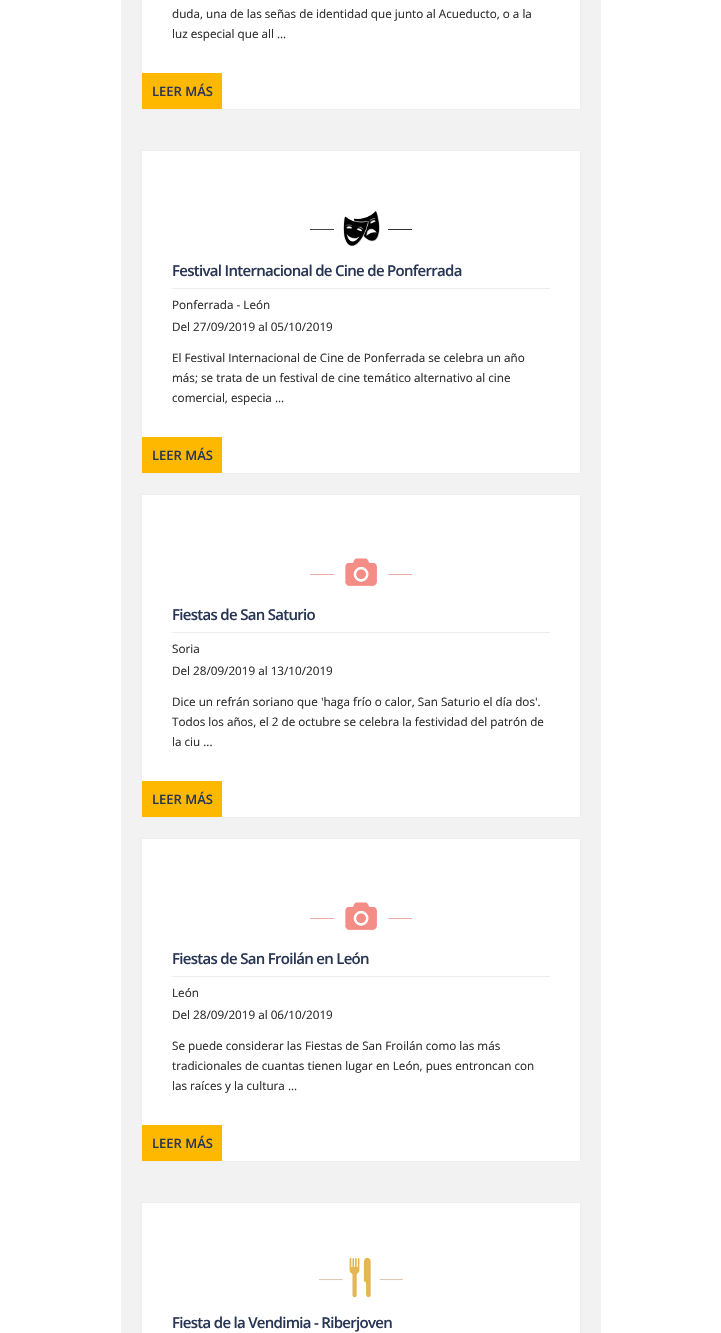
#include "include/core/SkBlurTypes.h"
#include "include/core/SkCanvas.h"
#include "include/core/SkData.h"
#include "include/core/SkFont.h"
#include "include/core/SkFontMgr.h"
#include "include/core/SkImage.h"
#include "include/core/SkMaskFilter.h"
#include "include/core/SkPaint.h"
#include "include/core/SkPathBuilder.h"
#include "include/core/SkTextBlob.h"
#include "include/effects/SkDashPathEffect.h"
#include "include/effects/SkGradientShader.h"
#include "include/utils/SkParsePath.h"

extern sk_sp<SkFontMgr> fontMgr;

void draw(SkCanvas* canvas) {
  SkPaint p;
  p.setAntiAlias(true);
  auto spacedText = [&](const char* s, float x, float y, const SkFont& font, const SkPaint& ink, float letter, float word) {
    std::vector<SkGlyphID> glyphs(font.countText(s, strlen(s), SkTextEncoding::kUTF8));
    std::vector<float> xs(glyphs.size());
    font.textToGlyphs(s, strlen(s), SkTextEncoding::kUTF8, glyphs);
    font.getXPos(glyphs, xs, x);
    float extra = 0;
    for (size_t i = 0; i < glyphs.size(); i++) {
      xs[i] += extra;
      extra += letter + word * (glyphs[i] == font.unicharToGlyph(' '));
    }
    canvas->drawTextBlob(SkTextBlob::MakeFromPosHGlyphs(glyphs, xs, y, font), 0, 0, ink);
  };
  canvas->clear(SK_ColorWHITE);
  p.setColor(SkColorSetRGB(242, 242, 242));
  canvas->drawRect(SkRect::MakeLTRB(121, 0, 601, 1333), p);
  p.setColor(SK_ColorWHITE);
  canvas->drawRect(SkRect::MakeLTRB(141.5f, -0.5f, 580.5f, 109.5f), p);
  p.setStyle(SkPaint::kStroke_Style);
  p.setStrokeWidth(1);
  p.setColor(SkColorSetRGB(238, 238, 238));
  canvas->drawRect(SkRect::MakeLTRB(141.5f, -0.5f, 580.5f, 109.5f), p);
  p.setStyle(SkPaint::kFill_Style);
  p.setColor(SkColorSetRGB(255, 184, 0));
  canvas->drawRect(SkRect::MakeLTRB(142, 73, 222, 109), p);
  p.setColor(SK_ColorWHITE);
  canvas->drawRect(SkRect::MakeLTRB(141.5f, 150.5f, 580.5f, 473.5f), p);
  p.setStyle(SkPaint::kStroke_Style);
  p.setColor(SkColorSetRGB(238, 238, 238));
  canvas->drawRect(SkRect::MakeLTRB(141.5f, 150.5f, 580.5f, 473.5f), p);
  canvas->drawImageRect(SkImages::DeferredFromEncodedData(SkData::MakeFromFileName("images/1.png")), SkRect::MakeLTRB(310, 211, 412, 247), SkSamplingOptions());
  p.setStyle(SkPaint::kFill_Style);
  canvas->drawRect(SkRect::MakeLTRB(172, 288, 550, 289), p);
  p.setColor(SkColorSetRGB(255, 184, 0));
  canvas->drawRect(SkRect::MakeLTRB(142, 437, 222, 473), p);
  p.setColor(SK_ColorWHITE);
  canvas->drawRect(SkRect::MakeLTRB(141.5f, 494.5f, 580.5f, 817.5f), p);
  p.setStyle(SkPaint::kStroke_Style);
  p.setColor(SkColorSetRGB(238, 238, 238));
  canvas->drawRect(SkRect::MakeLTRB(141.5f, 494.5f, 580.5f, 817.5f), p);
  canvas->drawImageRect(SkImages::DeferredFromEncodedData(SkData::MakeFromFileName("images/2.png")), SkRect::MakeLTRB(310, 558, 412, 587), SkSamplingOptions());
  p.setStyle(SkPaint::kFill_Style);
  canvas->drawRect(SkRect::MakeLTRB(172, 632, 550, 633), p);
  p.setColor(SkColorSetRGB(255, 184, 0));
  canvas->drawRect(SkRect::MakeLTRB(142, 781, 222, 817), p);
  p.setColor(SK_ColorWHITE);
  canvas->drawRect(SkRect::MakeLTRB(141.5f, 838.5f, 580.5f, 1161.5f), p);
  p.setStyle(SkPaint::kStroke_Style);
  p.setColor(SkColorSetRGB(238, 238, 238));
  canvas->drawRect(SkRect::MakeLTRB(141.5f, 838.5f, 580.5f, 1161.5f), p);
  canvas->drawImageRect(SkImages::DeferredFromEncodedData(SkData::MakeFromFileName("images/2.png")), SkRect::MakeLTRB(310, 902, 412, 931), SkSamplingOptions());
  p.setStyle(SkPaint::kFill_Style);
  canvas->drawRect(SkRect::MakeLTRB(172, 976, 550, 977), p);
  p.setColor(SkColorSetRGB(255, 184, 0));
  canvas->drawRect(SkRect::MakeLTRB(142, 1125, 222, 1161), p);
  p.setColor(SK_ColorWHITE);
  canvas->drawRect(SkRect::MakeLTRB(141.5f, 1202.5f, 580.5f, 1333.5f), p);
  p.setStyle(SkPaint::kStroke_Style);
  p.setColor(SkColorSetRGB(238, 238, 238));
  canvas->drawRect(SkRect::MakeLTRB(141.5f, 1202.5f, 580.5f, 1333.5f), p);
  canvas->drawImageRect(SkImages::DeferredFromEncodedData(SkData::MakeFromFileName("images/3.png")), SkRect::MakeLTRB(319, 1257, 403, 1298), SkSamplingOptions());
  SkFont font1(fontMgr->matchFamilyStyle("Open Sans", SkFontStyle::Normal()), 11.7f);
  font1.setSubpixel(true);
  p.setStyle(SkPaint::kFill_Style);
  p.setColor(SkColorSetRGB(44, 44, 44));
  canvas->drawString("duda, una de las señas de identidad que junto al Acueducto, o a la", 172, 18, font1, p);
  canvas->drawString("luz especial que all ...", 172, 38, font1, p);
  SkFont font2(fontMgr->matchFamilyStyle("Open Sans", SkFontStyle(600, SkFontStyle::kNormal_Width, SkFontStyle::kUpright_Slant)), 13);
  font2.setSubpixel(true);
  p.setColor(SkColorSetRGB(40, 54, 85));
  canvas->drawString("LEER MÁS", 152, 96, font2, p);
  SkFont font3(fontMgr->matchFamilyStyle("Open Sans", SkFontStyle(600, SkFontStyle::kNormal_Width, SkFontStyle::kUpright_Slant)), 15);
  font3.setSubpixel(true);
  spacedText("Festival Internacional de Cine de Ponferrada", 172, 276, font3, p, -0.7f, 0);
  p.setColor(SkColorSetRGB(44, 44, 44));
  canvas->drawString("Ponferrada - León", 172, 309, font1, p);
  canvas->drawString("Del 27/09/2019 al 05/10/2019", 172, 331, font1, p);
  canvas->drawString("El Festival Internacional de Cine de Ponferrada se celebra un año", 172, 362, font1, p);
  canvas->drawString("más; se trata de un festival de cine temático alternativo al cine", 172, 382, font1, p);
  canvas->drawString("comercial, especia ...", 172, 402, font1, p);
  p.setColor(SkColorSetRGB(40, 54, 85));
  canvas->drawString("LEER MÁS", 152, 460, font2, p);
  spacedText("Fiestas de San Saturio", 172, 620, font3, p, -0.7f, 0);
  p.setColor(SkColorSetRGB(44, 44, 44));
  canvas->drawString("Soria", 172, 653, font1, p);
  canvas->drawString("Del 28/09/2019 al 13/10/2019", 172, 675, font1, p);
  canvas->drawString("Dice un refrán soriano que 'haga frío o calor, San Saturio el día dos'.", 172, 706, font1, p);
  canvas->drawString("Todos los años, el 2 de octubre se celebra la festividad del patrón de", 172, 726, font1, p);
  canvas->drawString("la ciu ...", 172, 746, font1, p);
  p.setColor(SkColorSetRGB(40, 54, 85));
  canvas->drawString("LEER MÁS", 152, 804, font2, p);
  spacedText("Fiestas de San Froilán en León", 172, 964, font3, p, -0.7f, 0);
  p.setColor(SkColorSetRGB(44, 44, 44));
  canvas->drawString("León", 172, 997, font1, p);
  canvas->drawString("Del 28/09/2019 al 06/10/2019", 172, 1019, font1, p);
  canvas->drawString("Se puede considerar las Fiestas de San Froilán como las más", 172, 1050, font1, p);
  canvas->drawString("tradicionales de cuantas tienen lugar en León, pues entroncan con", 172, 1070, font1, p);
  canvas->drawString("las raíces y la cultura ...", 172, 1090, font1, p);
  p.setColor(SkColorSetRGB(40, 54, 85));
  canvas->drawString("LEER MÁS", 152, 1148, font2, p);
  spacedText("Fiesta de la Vendimia - Riberjoven", 172, 1328, font3, p, -0.7f, 0);
}
